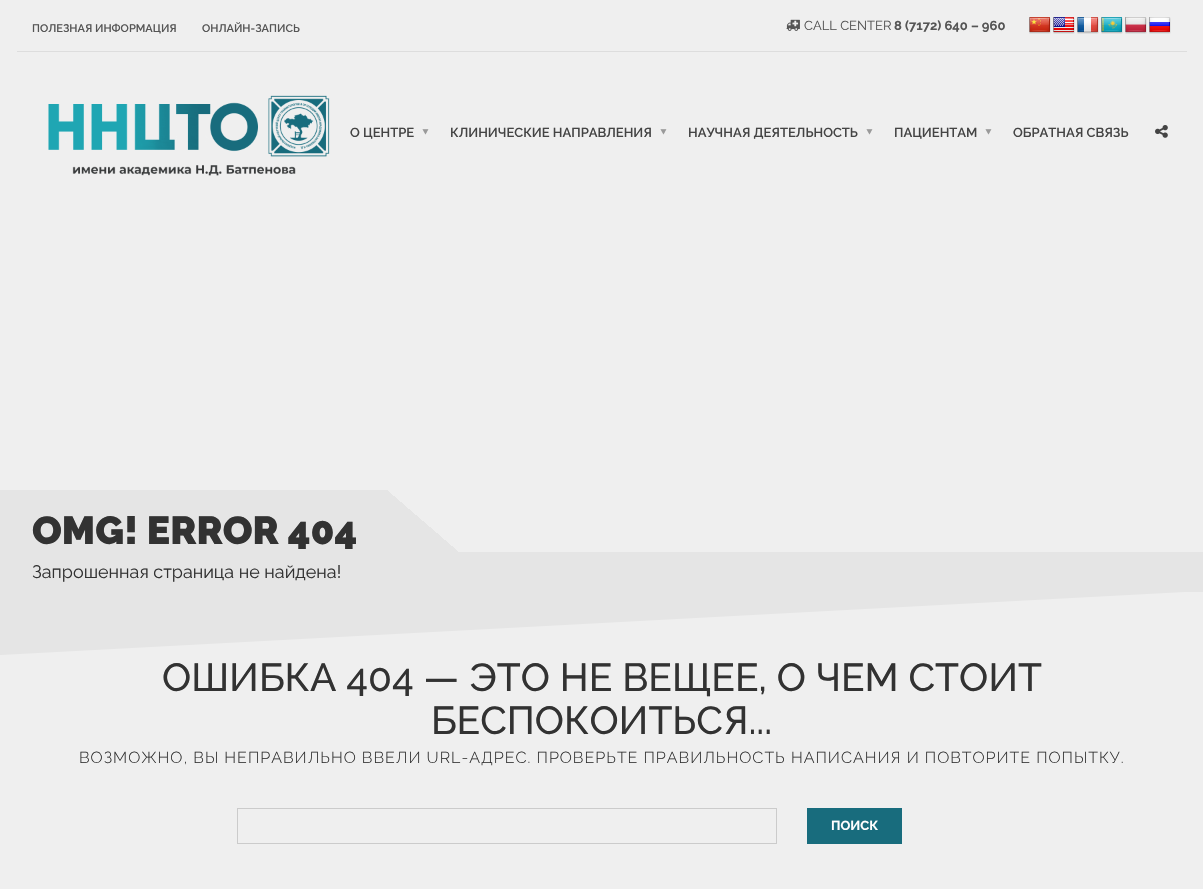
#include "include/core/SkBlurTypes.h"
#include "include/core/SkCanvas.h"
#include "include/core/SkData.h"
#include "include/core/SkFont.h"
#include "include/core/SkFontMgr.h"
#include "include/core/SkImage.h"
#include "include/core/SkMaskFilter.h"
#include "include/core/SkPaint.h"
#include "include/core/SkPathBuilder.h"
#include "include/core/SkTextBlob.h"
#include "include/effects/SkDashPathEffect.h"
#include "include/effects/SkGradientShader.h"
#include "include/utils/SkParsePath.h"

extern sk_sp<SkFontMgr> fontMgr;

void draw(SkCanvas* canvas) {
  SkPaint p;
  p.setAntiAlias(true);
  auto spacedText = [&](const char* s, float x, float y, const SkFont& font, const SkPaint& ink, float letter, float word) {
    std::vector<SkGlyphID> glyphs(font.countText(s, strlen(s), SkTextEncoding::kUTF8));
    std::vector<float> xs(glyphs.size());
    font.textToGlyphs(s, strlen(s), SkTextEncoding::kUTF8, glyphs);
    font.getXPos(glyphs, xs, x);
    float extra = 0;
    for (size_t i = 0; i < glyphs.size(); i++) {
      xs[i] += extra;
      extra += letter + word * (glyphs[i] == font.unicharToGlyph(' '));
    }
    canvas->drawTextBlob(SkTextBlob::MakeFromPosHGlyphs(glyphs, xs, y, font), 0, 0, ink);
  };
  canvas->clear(SkColorSetRGB(239, 239, 239));
  p.setColor(SkColorSetRGB(221, 221, 221));
  canvas->drawRect(SkRect::MakeLTRB(17, 51, 1187, 52), p);
  canvas->drawImageRect(SkImages::DeferredFromEncodedData(SkData::MakeFromFileName("images/1.png")), SkRect::MakeLTRB(786, 19, 800, 31), SkSamplingOptions());
  canvas->drawImageRect(SkImages::DeferredFromEncodedData(SkData::MakeFromFileName("images/2.png")), SkRect::MakeLTRB(1029, 17, 1051, 34), SkSamplingOptions());
  canvas->drawImageRect(SkImages::DeferredFromEncodedData(SkData::MakeFromFileName("images/3.png")), SkRect::MakeLTRB(1053, 17, 1075, 34), SkSamplingOptions());
  canvas->drawImageRect(SkImages::DeferredFromEncodedData(SkData::MakeFromFileName("images/4.png")), SkRect::MakeLTRB(1077, 17, 1099, 34), SkSamplingOptions());
  canvas->drawImageRect(SkImages::DeferredFromEncodedData(SkData::MakeFromFileName("images/5.png")), SkRect::MakeLTRB(1101, 17, 1123, 34), SkSamplingOptions());
  canvas->drawImageRect(SkImages::DeferredFromEncodedData(SkData::MakeFromFileName("images/6.png")), SkRect::MakeLTRB(1125, 17, 1147, 34), SkSamplingOptions());
  canvas->drawImageRect(SkImages::DeferredFromEncodedData(SkData::MakeFromFileName("images/7.png")), SkRect::MakeLTRB(1149, 17, 1171, 34), SkSamplingOptions());
  canvas->drawImageRect(SkImages::DeferredFromEncodedData(SkData::MakeFromFileName("images/8.png")), SkRect::MakeLTRB(48, 95, 330, 176), SkSamplingOptions());
  canvas->drawImageRect(SkImages::DeferredFromEncodedData(SkData::MakeFromFileName("images/9.png")), SkRect::MakeLTRB(1155, 125, 1168, 138), SkSamplingOptions());
  {
    const SkColor colors[] = {SkColorSetRGB(229, 229, 229), SkColorSetRGB(239, 239, 239), SkColorSetRGB(239, 239, 239)};
    const float stops[] = {0.15f, 0.15f, 1};
    const SkPoint ends[] = {{0, 521}, {1203, 521}};
    p.setShader(SkGradientShader::MakeLinear(ends, colors, stops, 3, SkTileMode::kClamp));
    p.setAlpha(255);
  }
  canvas->drawRect(SkRect::MakeLTRB(0, 490, 180, 552), p);
  p.setShader(nullptr);
  p.setColor(SkColorSetRGB(229, 229, 229));
  canvas->drawRect(SkRect::MakeLTRB(180, 490, 387, 552), p);
  {
    const SkColor colors[] = {SkColorSetRGB(229, 229, 229), SkColorSetRGB(229, 229, 229), SkColorSetRGB(239, 239, 239), SkColorSetRGB(239, 239, 239)};
    const float stops[] = {0, 0.5f, 0.5f, 1};
    const SkPoint ends[] = {{392, 557}, {454, 485}};
    p.setShader(SkGradientShader::MakeLinear(ends, colors, stops, 4, SkTileMode::kClamp));
    p.setAlpha(255);
  }
  canvas->drawRect(SkRect::MakeLTRB(387, 490, 458, 552), p);
  p.setShader(nullptr);
  p.setColor(SkColorSetRGB(229, 229, 229));
  canvas->drawRect(SkRect::MakeLTRB(0, 552, 1203, 592), p);
  canvas->drawPath(SkPathBuilder().moveTo(1203, 591).lineTo(0, 591).lineTo(0, 655).close().detach(), p);
  p.setStyle(SkPaint::kStroke_Style);
  p.setStrokeWidth(1);
  p.setColor(SkColorSetRGB(203, 203, 203));
  canvas->drawRect(SkRect::MakeLTRB(237.5f, 808.5f, 776.5f, 843.5f), p);
  p.setStyle(SkPaint::kFill_Style);
  p.setColor(SkColorSetRGB(24, 108, 125));
  canvas->drawRect(SkRect::MakeLTRB(807, 808, 902, 844), p);
  SkFont font1(fontMgr->matchFamilyStyle("Raleway", SkFontStyle(600, SkFontStyle::kNormal_Width, SkFontStyle::kUpright_Slant)), 11);
  font1.setSubpixel(true);
  p.setColor(SkColorSetRGB(85, 85, 85));
  canvas->drawString("ПОЛЕЗНАЯ ИНФОРМАЦИЯ", 32, 32, font1, p);
  canvas->drawString("ОНЛАЙН-ЗАПИСЬ", 202, 32, font1, p);
  SkFont font2(fontMgr->matchFamilyStyle("Raleway", SkFontStyle::Normal()), 13);
  font2.setSubpixel(true);
  canvas->drawString("CALL CENTER", 804, 30, font2, p);
  SkFont font3(fontMgr->matchFamilyStyle("Raleway", SkFontStyle::Bold()), 13);
  font3.setSubpixel(true);
  canvas->drawString("8 (7172) 640 – 960", 894, 30, font3, p);
  SkFont font4(fontMgr->matchFamilyStyle("Raleway", SkFontStyle(600, SkFontStyle::kNormal_Width, SkFontStyle::kUpright_Slant)), 13);
  font4.setSubpixel(true);
  p.setColor(SkColorSetRGB(68, 68, 68));
  canvas->drawString("О ЦЕНТРЕ", 350, 137, font4, p);
  SkFont font5(fontMgr->matchFamilyStyle("Noto Sans", SkFontStyle::Normal()), 20);
  font5.setSubpixel(true);
  p.setColor(SkColorSetRGB(154, 154, 154));
  canvas->save();
  canvas->rotate(90, 418, 128);
  canvas->drawString("‣", 418, 128, font5, p);
  canvas->restore();
  p.setColor(SkColorSetRGB(68, 68, 68));
  canvas->drawString("КЛИНИЧЕСКИЕ НАПРАВЛЕНИЯ", 450, 137, font4, p);
  p.setColor(SkColorSetRGB(154, 154, 154));
  canvas->save();
  canvas->rotate(90, 656, 128);
  canvas->drawString("‣", 656, 128, font5, p);
  canvas->restore();
  p.setColor(SkColorSetRGB(68, 68, 68));
  canvas->drawString("НАУЧНАЯ ДЕЯТЕЛЬНОСТЬ", 688, 137, font4, p);
  p.setColor(SkColorSetRGB(154, 154, 154));
  canvas->save();
  canvas->rotate(90, 862, 128);
  canvas->drawString("‣", 862, 128, font5, p);
  canvas->restore();
  p.setColor(SkColorSetRGB(68, 68, 68));
  canvas->drawString("ПАЦИЕНТАМ", 894, 137, font4, p);
  p.setColor(SkColorSetRGB(154, 154, 154));
  canvas->save();
  canvas->rotate(90, 981, 128);
  canvas->drawString("‣", 981, 128, font5, p);
  canvas->restore();
  p.setColor(SkColorSetRGB(68, 68, 68));
  canvas->drawString("ОБРАТНАЯ СВЯЗЬ", 1013, 137, font4, p);
  SkFont font6(fontMgr->matchFamilyStyle("Raleway", SkFontStyle(900, SkFontStyle::kNormal_Width, SkFontStyle::kUpright_Slant)), 39);
  font6.setSubpixel(true);
  p.setColor(SkColorSetRGB(50, 50, 50));
  canvas->drawString("OMG! ERROR 404", 32, 544, font6, p);
  SkFont font7(fontMgr->matchFamilyStyle("Raleway", SkFontStyle::Normal()), 18);
  font7.setSubpixel(true);
  canvas->drawString("Запрошенная страница не найдена!", 32, 578, font7, p);
  SkFont font8(fontMgr->matchFamilyStyle("Raleway", SkFontStyle(500, SkFontStyle::kNormal_Width, SkFontStyle::kUpright_Slant)), 39);
  font8.setSubpixel(true);
  canvas->drawString("ОШИБКА 404 — ЭТО НЕ ВЕЩЕЕ, О ЧЕМ СТОИТ", 162, 691, font8, p);
  canvas->drawString("БЕСПОКОИТЬСЯ...", 431, 734, font8, p);
  SkFont font9(fontMgr->matchFamilyStyle("Raleway", SkFontStyle(300, SkFontStyle::kNormal_Width, SkFontStyle::kUpright_Slant)), 16);
  font9.setSubpixel(true);
  spacedText("ВОЗМОЖНО, ВЫ НЕПРАВИЛЬНО ВВЕЛИ URL-АДРЕС. ПРОВЕРЬТЕ ПРАВИЛЬНОСТЬ НАПИСАНИЯ И ПОВТОРИТЕ ПОПЫТКУ.", 79, 763, font9, p, 1, 0);
  p.setColor(SK_ColorWHITE);
  canvas->drawString("ПОИСК", 831, 830, font3, p);
}
